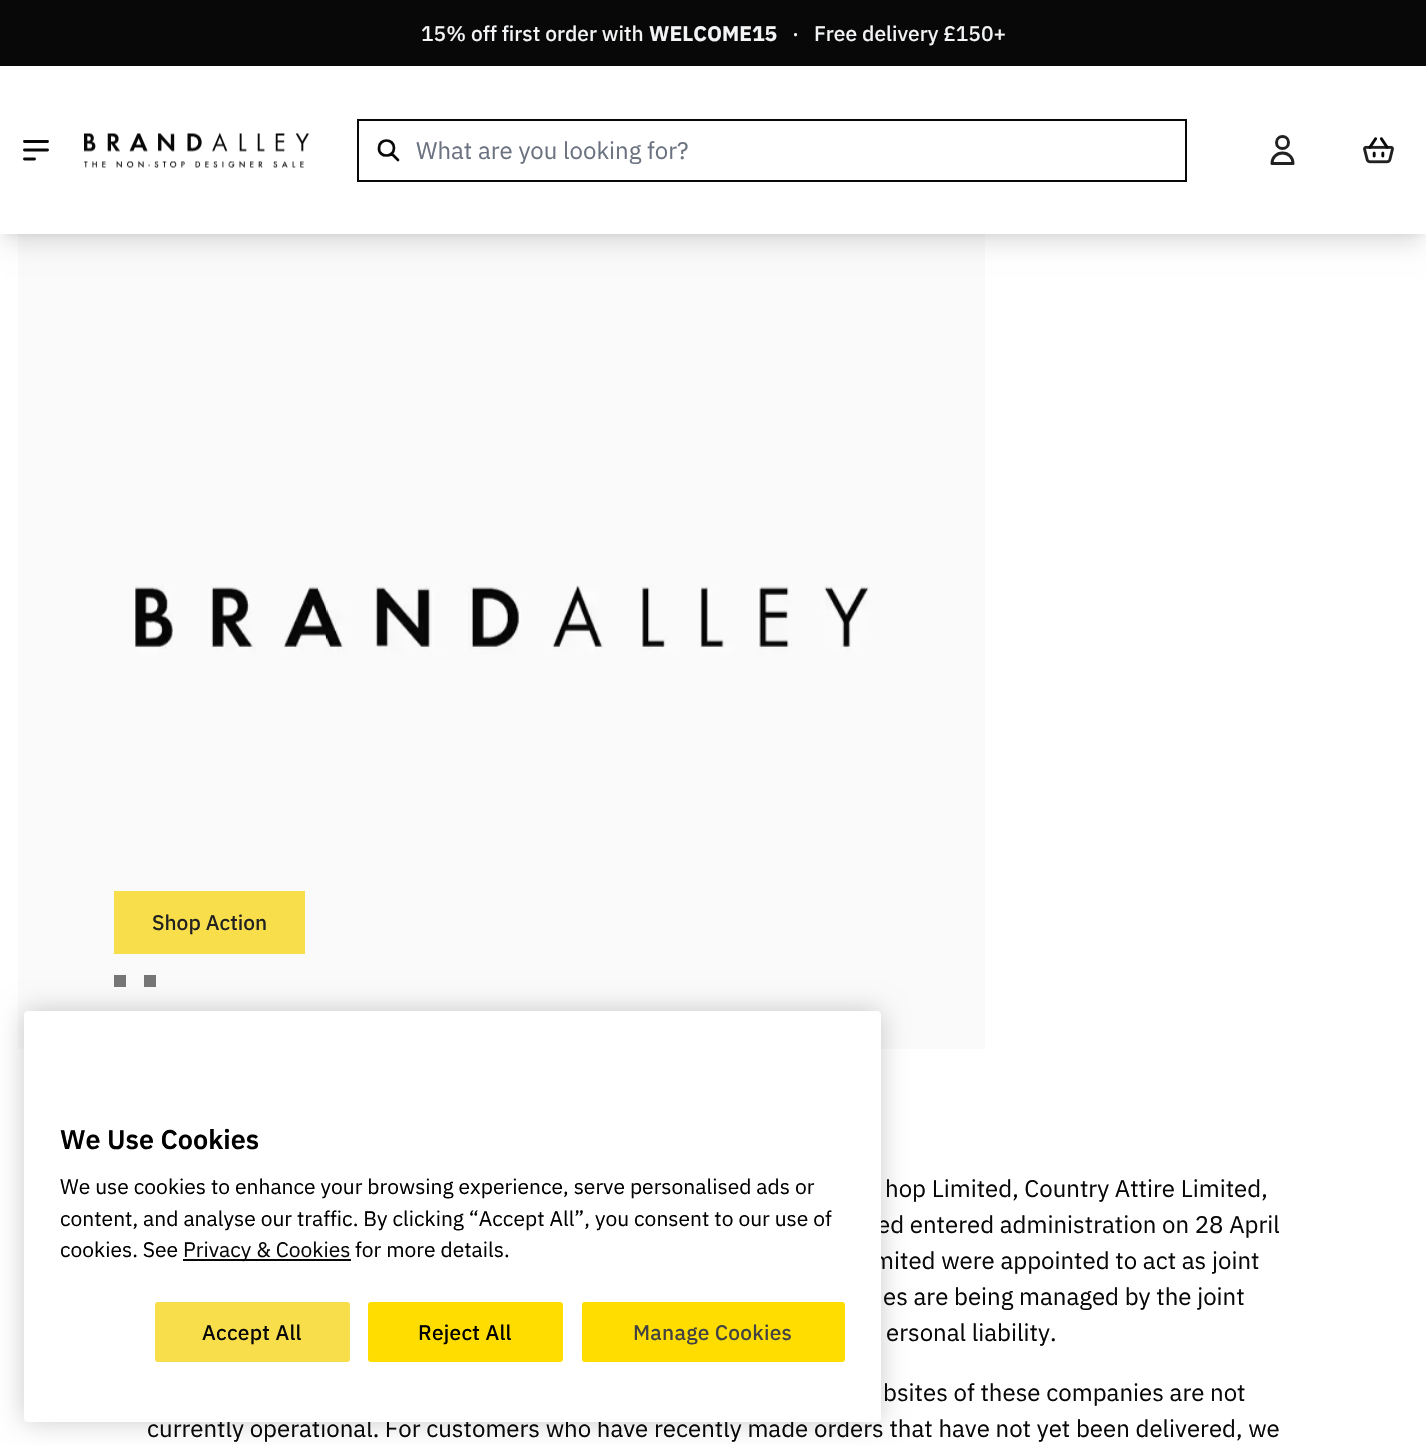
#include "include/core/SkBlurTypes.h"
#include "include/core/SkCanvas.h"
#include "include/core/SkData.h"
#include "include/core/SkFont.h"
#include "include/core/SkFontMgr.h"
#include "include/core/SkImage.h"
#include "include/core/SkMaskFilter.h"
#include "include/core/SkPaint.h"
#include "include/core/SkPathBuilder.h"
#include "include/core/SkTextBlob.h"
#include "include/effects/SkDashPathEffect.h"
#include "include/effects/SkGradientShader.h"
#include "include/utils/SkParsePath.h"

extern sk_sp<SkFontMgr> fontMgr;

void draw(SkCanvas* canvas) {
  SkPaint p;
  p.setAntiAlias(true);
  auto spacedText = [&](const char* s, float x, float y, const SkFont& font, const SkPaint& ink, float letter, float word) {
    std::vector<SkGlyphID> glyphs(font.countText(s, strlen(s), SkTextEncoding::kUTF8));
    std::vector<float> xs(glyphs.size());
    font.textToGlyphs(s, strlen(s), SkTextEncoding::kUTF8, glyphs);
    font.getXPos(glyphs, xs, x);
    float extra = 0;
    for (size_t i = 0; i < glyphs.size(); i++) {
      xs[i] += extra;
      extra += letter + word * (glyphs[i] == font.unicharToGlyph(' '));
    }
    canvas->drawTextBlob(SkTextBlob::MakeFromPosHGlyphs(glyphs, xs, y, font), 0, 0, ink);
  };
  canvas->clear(SK_ColorWHITE);
  canvas->drawImageRect(SkImages::DeferredFromEncodedData(SkData::MakeFromFileName("images/3.png")), SkRect::MakeLTRB(18, 234, 985, 1049), SkSamplingOptions());
  p.setColor(SkColorSetARGB(26, 0, 0, 0));
  p.setMaskFilter(SkMaskFilter::MakeBlur(kNormal_SkBlurStyle, 4.5f));
  canvas->drawRect(SkRect::MakeLTRB(6, 12, 1421, 234), p);
  p.setMaskFilter(nullptr);
  p.setMaskFilter(SkMaskFilter::MakeBlur(kNormal_SkBlurStyle, 11));
  canvas->drawRect(SkRect::MakeLTRB(5, 20, 1422, 245), p);
  p.setMaskFilter(nullptr);
  p.setColor(SK_ColorWHITE);
  canvas->drawRect(SkRect::MakeLTRB(0, 66, 1426, 234), p);
  p.setColor(SkColorSetRGB(8, 8, 8));
  canvas->drawRect(SkRect::MakeLTRB(0, 0, 1426, 66), p);
  p.setStyle(SkPaint::kStroke_Style);
  p.setStrokeWidth(2.9f);
  p.setStrokeCap(SkPaint::kRound_Cap);
  p.setStrokeJoin(SkPaint::kRound_Join);
  canvas->drawPath(SkPathBuilder().moveTo(24.5f, 159).lineTo(34.5f, 159).moveTo(24.5f, 141.5f).lineTo(47.5f, 141.5f).close().moveTo(24.5f, 150).lineTo(47.5f, 150).close().detach(), p);
  canvas->drawImageRect(SkImages::DeferredFromEncodedData(SkData::MakeFromFileName("images/1.png")), SkRect::MakeLTRB(84, 132, 309, 168), SkSamplingOptions());
  p.setStrokeWidth(2);
  p.setStrokeCap(SkPaint::kButt_Cap);
  p.setStrokeJoin(SkPaint::kMiter_Join);
  canvas->drawRect(SkRect::MakeLTRB(358, 120, 1186, 181), p);
  p.setStrokeWidth(2.7f);
  p.setStrokeCap(SkPaint::kRound_Cap);
  p.setStrokeJoin(SkPaint::kRound_Join);
  canvas->drawPath(SkPathBuilder().moveTo(398, 160).lineTo(391.5f, 153.5f).moveTo(394, 148).cubicTo(394, 158, 378.5f, 158, 379, 148).cubicTo(379, 138, 394, 138, 394, 148).close().detach(), p);
  p.setStrokeWidth(3);
  p.setColor(SkColorSetRGB(33, 33, 33));
  canvas->drawPath(SkPathBuilder().moveTo(1288.5f, 142.5f).cubicTo(1288.5f, 150.5f, 1276.5f, 150.5f, 1276.5f, 142.5f).cubicTo(1276.5f, 134.5f, 1288.5f, 134.5f, 1288.5f, 142.5f).close().moveTo(1282.5f, 153).cubicTo(1276.5f, 153, 1272, 157.5f, 1272, 163.5f).lineTo(1293, 163.5f).cubicTo(1293, 157.5f, 1288.5f, 153, 1282.5f, 153).close().detach(), p);
  canvas->drawImageRect(SkImages::DeferredFromEncodedData(SkData::MakeFromFileName("images/2.png")), SkRect::MakeLTRB(1363, 137, 1394, 164), SkSamplingOptions());
  p.setStyle(SkPaint::kFill_Style);
  p.setColor(SkColorSetRGB(249, 222, 75));
  canvas->drawRect(SkRect::MakeLTRB(114, 891, 305, 954), p);
  p.setColor(SkColorSetRGB(118, 118, 118));
  canvas->drawRect(SkRect::MakeLTRB(114, 975, 126, 987), p);
  canvas->drawRect(SkRect::MakeLTRB(144, 975, 156, 987), p);
  p.setColor(SkColorSetARGB(51, 0, 0, 0));
  p.setMaskFilter(SkMaskFilter::MakeBlur(kNormal_SkBlurStyle, 13.5f));
  canvas->drawRoundRect(SkRect::MakeLTRB(24, 1011, 881, 1422), 4, 4, p);
  p.setMaskFilter(nullptr);
  SkFont font1(fontMgr->matchFamilyStyle("Anuphan", SkFontStyle(500, SkFontStyle::kNormal_Width, SkFontStyle::kUpright_Slant)), 21);
  font1.setSubpixel(true);
  p.setColor(SkColorSetRGB(243, 244, 246));
  canvas->drawString("15% off first order with", 421, 41, font1, p);
  SkFont font2(fontMgr->matchFamilyStyle("Anuphan", SkFontStyle::Bold()), 21);
  font2.setSubpixel(true);
  canvas->drawString("WELCOME15", 649, 41, font2, p);
  canvas->drawString("·   Free delivery £150+", 792, 41, font1, p);
  SkFont font3(fontMgr->matchFamilyStyle("Anuphan", SkFontStyle::Normal()), 24);
  font3.setSubpixel(true);
  p.setColor(SkColorSetRGB(107, 114, 128));
  canvas->drawString("What are you looking for?", 416, 159, font3, p);
  p.setColor(SkColorSetRGB(33, 33, 33));
  canvas->drawString("Shop Action", 152, 930, font1, p);
  p.setColor(SkColorSetRGB(8, 8, 8));
  canvas->drawString("hop Limited, Country Attire Limited,", 885, 1197, font3, p);
  canvas->drawString("ed entered administration on 28 April", 877, 1233, font3, p);
  canvas->drawString("mited were appointed to act as joint", 873, 1269, font3, p);
  canvas->drawString("es are being managed by the joint", 883, 1305, font3, p);
  canvas->drawString("ersonal liability.", 886, 1341, font3, p);
  canvas->drawString("bsites of these companies are not", 883, 1401, font3, p);
  canvas->drawString("currently operational. For customers who have recently made orders that have not yet been delivered, we", 147, 1437, font3, p);
  p.setColor(SK_ColorWHITE);
  canvas->drawRoundRect(SkRect::MakeLTRB(24, 1011, 881, 1422), 4, 4, p);
  SkFont font4(fontMgr->matchFamilyStyle("Anuphan", SkFontStyle(600, SkFontStyle::kNormal_Width, SkFontStyle::kUpright_Slant)), 27);
  font4.setSubpixel(true);
  p.setColor(SK_ColorBLACK);
  canvas->drawString("We Use Cookies", 60, 1149, font4, p);
  SkFont font5(fontMgr->matchFamilyStyle("Anuphan", SkFontStyle::Normal()), 21);
  font5.setSubpixel(true);
  canvas->drawString("We use cookies to enhance your browsing experience, serve personalised ads or", 60, 1194, font5, p);
  canvas->drawString("content, and analyse our traffic. By clicking “Accept All”, you consent to our use of", 60, 1226, font5, p);
  canvas->drawString("cookies. See", 60, 1257, font5, p);
  p.setColor(SkColorSetRGB(8, 8, 8));
  canvas->drawRect(SkRect::MakeLTRB(183, 1259, 351, 1261), p);
  canvas->drawString("Privacy & Cookies", 183, 1257, font5, p);
  p.setColor(SK_ColorBLACK);
  canvas->drawString("for more details.", 355, 1257, font5, p);
  p.setColor(SkColorSetRGB(249, 222, 75));
  canvas->drawRoundRect(SkRect::MakeLTRB(156, 1303, 349, 1361), 2, 2, p);
  p.setStyle(SkPaint::kStroke_Style);
  p.setStrokeWidth(2);
  p.setStrokeCap(SkPaint::kButt_Cap);
  p.setStrokeJoin(SkPaint::kMiter_Join);
  canvas->drawRoundRect(SkRect::MakeLTRB(156, 1303, 349, 1361), 2, 2, p);
  p.setStyle(SkPaint::kFill_Style);
  p.setColor(SkColorSetRGB(8, 8, 8));
  spacedText("Accept All", 202, 1340, font1, p, 0.25f, 0);
  p.setColor(SkColorSetRGB(255, 221, 0));
  canvas->drawRoundRect(SkRect::MakeLTRB(369, 1303, 562, 1361), 2, 2, p);
  p.setStyle(SkPaint::kStroke_Style);
  canvas->drawRoundRect(SkRect::MakeLTRB(369, 1303, 562, 1361), 2, 2, p);
  p.setStyle(SkPaint::kFill_Style);
  p.setColor(SK_ColorBLACK);
  spacedText("Reject All", 418, 1340, font1, p, 0.25f, 0);
  p.setColor(SkColorSetRGB(255, 221, 0));
  canvas->drawRoundRect(SkRect::MakeLTRB(583, 1303, 844, 1361), 2, 2, p);
  p.setStyle(SkPaint::kStroke_Style);
  canvas->drawRoundRect(SkRect::MakeLTRB(583, 1303, 844, 1361), 2, 2, p);
  p.setStyle(SkPaint::kFill_Style);
  p.setColor(SkColorSetRGB(66, 66, 66));
  spacedText("Manage Cookies", 633, 1340, font1, p, 0.25f, 0);
}
